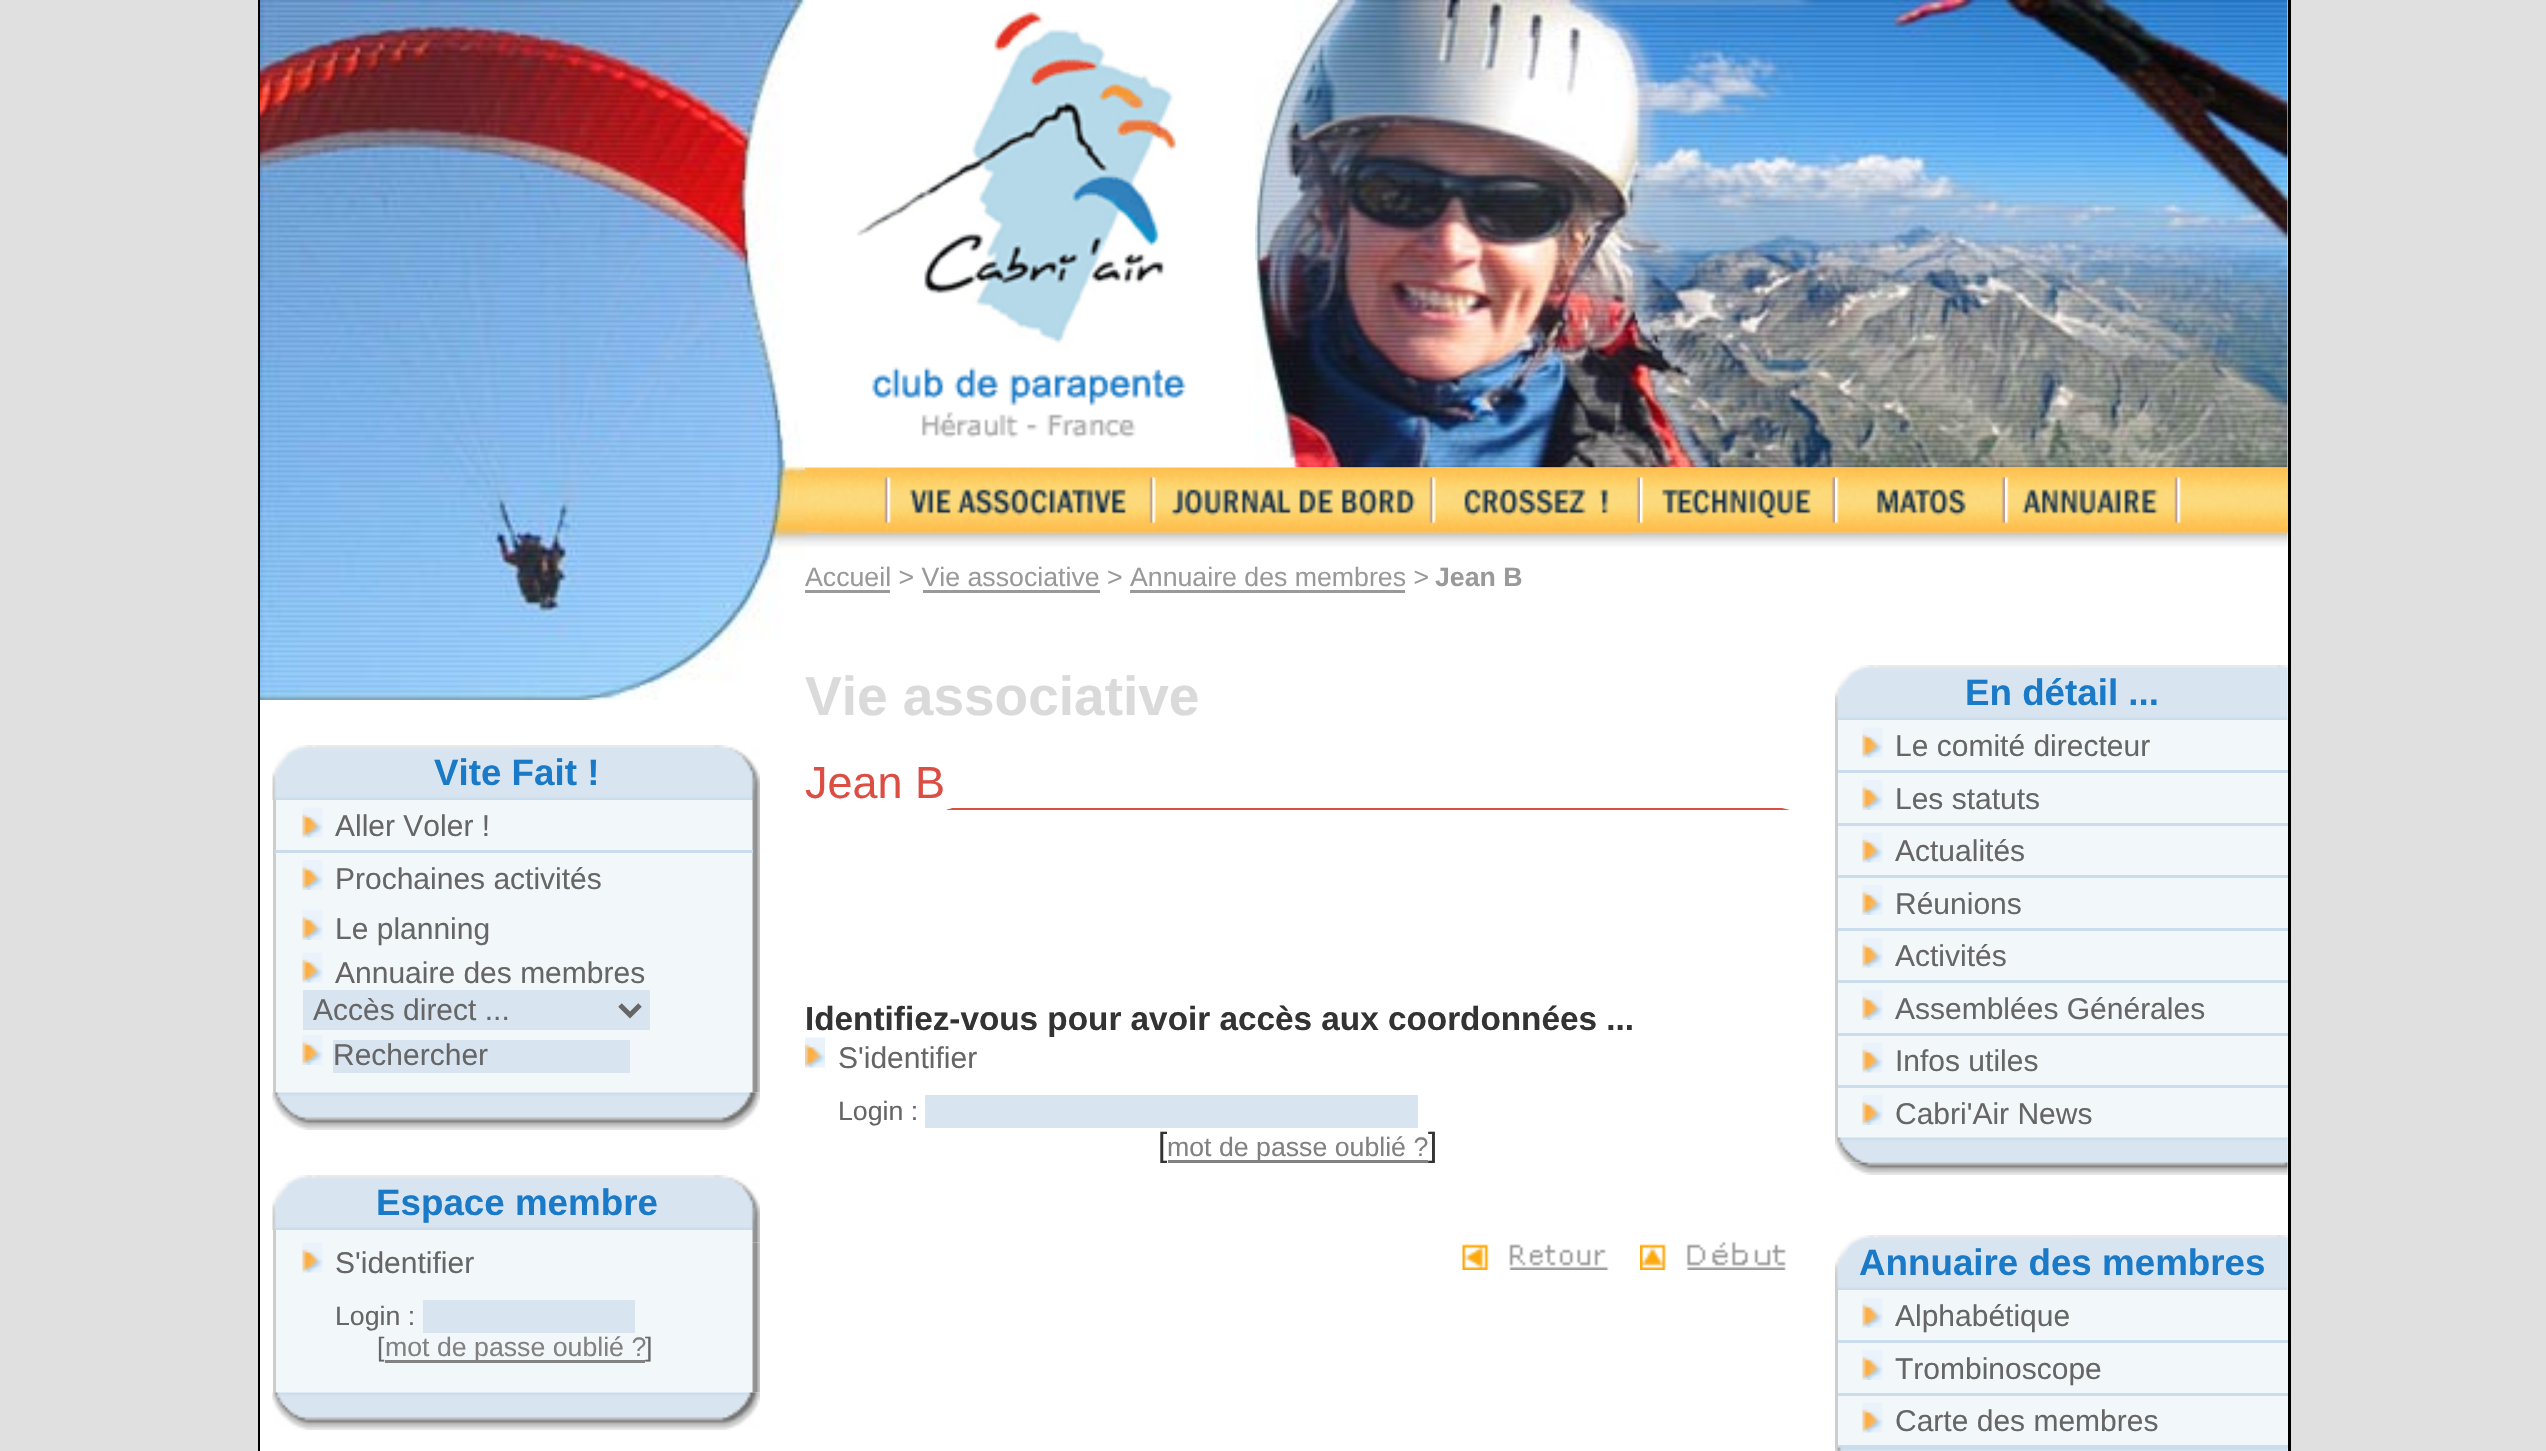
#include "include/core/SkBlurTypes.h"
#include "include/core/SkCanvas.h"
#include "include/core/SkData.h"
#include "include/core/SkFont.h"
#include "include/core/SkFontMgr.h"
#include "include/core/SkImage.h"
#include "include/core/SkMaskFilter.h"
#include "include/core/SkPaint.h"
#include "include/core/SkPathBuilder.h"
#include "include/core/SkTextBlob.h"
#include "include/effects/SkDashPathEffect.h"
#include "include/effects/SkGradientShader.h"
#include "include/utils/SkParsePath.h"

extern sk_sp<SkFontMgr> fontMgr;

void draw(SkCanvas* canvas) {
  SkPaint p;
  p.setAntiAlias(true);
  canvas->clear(SkColorSetRGB(224, 224, 224));
  p.setColor(SK_ColorBLACK);
  canvas->drawRect(SkRect::MakeLTRB(258, 0, 260, 1451), p);
  p.setColor(SK_ColorWHITE);
  canvas->drawRect(SkRect::MakeLTRB(260, 700, 805, 1451), p);
  canvas->drawImageRect(SkImages::DeferredFromEncodedData(SkData::MakeFromFileName("images/1.png")), SkRect::MakeLTRB(260, 0, 805, 700), SkSamplingOptions());
  p.setColor(SkColorSetRGB(242, 247, 250));
  canvas->drawRect(SkRect::MakeLTRB(276, 800, 760, 1093), p);
  canvas->drawImageRect(SkImages::DeferredFromEncodedData(SkData::MakeFromFileName("images/2.png")), SkRect::MakeLTRB(272, 745, 760, 800), SkSamplingOptions());
  p.setColor(SkColorSetRGB(205, 205, 205));
  canvas->drawRect(SkRect::MakeLTRB(273, 800, 276, 1093), p);
  canvas->drawImageRect(SkImages::DeferredFromEncodedData(SkData::MakeFromFileName("images/3.png")), SkRect::MakeLTRB(302, 807, 323, 838), SkSamplingOptions());
  canvas->drawImageRect(SkImages::DeferredFromEncodedData(SkData::MakeFromFileName("images/4.png")), SkRect::MakeLTRB(752, 800, 760, 1093), SkSamplingOptions());
  p.setColor(SkColorSetRGB(203, 221, 236));
  canvas->drawRect(SkRect::MakeLTRB(275, 850, 753, 853), p);
  canvas->drawImageRect(SkImages::DeferredFromEncodedData(SkData::MakeFromFileName("images/5.png")), SkRect::MakeLTRB(302, 860, 323, 890), SkSamplingOptions());
  canvas->drawImageRect(SkImages::DeferredFromEncodedData(SkData::MakeFromFileName("images/5.png")), SkRect::MakeLTRB(302, 910, 323, 940), SkSamplingOptions());
  canvas->drawImageRect(SkImages::DeferredFromEncodedData(SkData::MakeFromFileName("images/3.png")), SkRect::MakeLTRB(302, 952, 323, 983), SkSamplingOptions());
  p.setColor(SkColorSetRGB(216, 229, 241));
  canvas->drawRect(SkRect::MakeLTRB(303, 990, 650, 1030), p);
  p.setStyle(SkPaint::kStroke_Style);
  p.setStrokeWidth(5);
  p.setColor(SkColorSetRGB(102, 102, 102));
  canvas->drawPath(SkPathBuilder().moveTo(620, 1005).lineTo(630, 1015).lineTo(640, 1005).detach(), p);
  canvas->drawImageRect(SkImages::DeferredFromEncodedData(SkData::MakeFromFileName("images/5.png")), SkRect::MakeLTRB(302, 1035, 323, 1065), SkSamplingOptions());
  p.setStyle(SkPaint::kFill_Style);
  p.setColor(SkColorSetRGB(216, 229, 241));
  canvas->drawRect(SkRect::MakeLTRB(333, 1040, 630, 1073), p);
  canvas->drawImageRect(SkImages::DeferredFromEncodedData(SkData::MakeFromFileName("images/6.png")), SkRect::MakeLTRB(272, 1092, 760, 1130), SkSamplingOptions());
  p.setColor(SkColorSetRGB(242, 247, 250));
  canvas->drawRect(SkRect::MakeLTRB(276, 1230, 760, 1393), p);
  canvas->drawImageRect(SkImages::DeferredFromEncodedData(SkData::MakeFromFileName("images/7.png")), SkRect::MakeLTRB(272, 1175, 760, 1230), SkSamplingOptions());
  p.setColor(SkColorSetRGB(205, 205, 205));
  canvas->drawRect(SkRect::MakeLTRB(273, 1230, 276, 1393), p);
  canvas->drawImageRect(SkImages::DeferredFromEncodedData(SkData::MakeFromFileName("images/8.png")), SkRect::MakeLTRB(752, 1230, 760, 1243), SkSamplingOptions());
  canvas->drawImageRect(SkImages::DeferredFromEncodedData(SkData::MakeFromFileName("images/3.png")), SkRect::MakeLTRB(302, 1242, 323, 1273), SkSamplingOptions());
  p.setColor(SkColorSetRGB(216, 229, 241));
  canvas->drawRect(SkRect::MakeLTRB(423, 1300, 635, 1333), p);
  p.setColor(SkColorSetRGB(129, 129, 129));
  canvas->drawRect(SkRect::MakeLTRB(385, 1360, 645, 1363), p);
  canvas->drawImageRect(SkImages::DeferredFromEncodedData(SkData::MakeFromFileName("images/9.png")), SkRect::MakeLTRB(752, 1242, 760, 1393), SkSamplingOptions());
  canvas->drawImageRect(SkImages::DeferredFromEncodedData(SkData::MakeFromFileName("images/6.png")), SkRect::MakeLTRB(272, 1392, 760, 1430), SkSamplingOptions());
  p.setColor(SK_ColorWHITE);
  canvas->drawRect(SkRect::MakeLTRB(805, 0, 2288, 1451), p);
  canvas->drawImageRect(SkImages::DeferredFromEncodedData(SkData::MakeFromFileName("images/10.png")), SkRect::MakeLTRB(856, 11, 1186, 438), SkSamplingOptions());
  canvas->drawImageRect(SkImages::DeferredFromEncodedData(SkData::MakeFromFileName("images/11.png")), SkRect::MakeLTRB(1255, 0, 2288, 468), SkSamplingOptions());
  p.setColor(SkColorSetRGB(255, 204, 102));
  canvas->drawRect(SkRect::MakeLTRB(805, 468, 2288, 533), p);
  canvas->drawImageRect(SkImages::DeferredFromEncodedData(SkData::MakeFromFileName("images/12.png")), SkRect::MakeLTRB(805, 467, 888, 533), SkSamplingOptions());
  canvas->drawImageRect(SkImages::DeferredFromEncodedData(SkData::MakeFromFileName("images/13.png")), SkRect::MakeLTRB(887, 467, 1153, 533), SkSamplingOptions());
  canvas->drawImageRect(SkImages::DeferredFromEncodedData(SkData::MakeFromFileName("images/14.png")), SkRect::MakeLTRB(1152, 467, 1433, 533), SkSamplingOptions());
  canvas->drawImageRect(SkImages::DeferredFromEncodedData(SkData::MakeFromFileName("images/15.png")), SkRect::MakeLTRB(1432, 467, 1640, 533), SkSamplingOptions());
  canvas->drawImageRect(SkImages::DeferredFromEncodedData(SkData::MakeFromFileName("images/16.png")), SkRect::MakeLTRB(1640, 467, 1835, 533), SkSamplingOptions());
  canvas->drawImageRect(SkImages::DeferredFromEncodedData(SkData::MakeFromFileName("images/17.png")), SkRect::MakeLTRB(1835, 467, 2005, 533), SkSamplingOptions());
  canvas->drawImageRect(SkImages::DeferredFromEncodedData(SkData::MakeFromFileName("images/18.png")), SkRect::MakeLTRB(2005, 467, 2178, 533), SkSamplingOptions());
  canvas->drawImageRect(SkImages::DeferredFromEncodedData(SkData::MakeFromFileName("images/19.png")), SkRect::MakeLTRB(2177, 467, 2288, 533), SkSamplingOptions());
  canvas->drawImageRect(SkImages::DeferredFromEncodedData(SkData::MakeFromFileName("images/20.png")), SkRect::MakeLTRB(805, 532, 2288, 547), SkSamplingOptions());
  p.setColor(SkColorSetRGB(153, 153, 153));
  canvas->drawRect(SkRect::MakeLTRB(805, 590, 890, 593), p);
  canvas->drawRect(SkRect::MakeLTRB(923, 590, 1100, 593), p);
  canvas->drawRect(SkRect::MakeLTRB(1130, 590, 1405, 593), p);
  p.setColor(SkColorSetRGB(220, 77, 68));
  canvas->drawPath(SkPathBuilder().moveTo(1790, 810).lineTo(945, 810).lineTo(952, 808).lineTo(1782, 808).close().detach(), p);
  p.setColor(SK_ColorWHITE);
  canvas->drawPath(SkPathBuilder().moveTo(945, 810).lineTo(945, 755).lineTo(952, 762).lineTo(952, 808).close().detach(), p);
  canvas->drawImageRect(SkImages::DeferredFromEncodedData(SkData::MakeFromFileName("images/21.png")), SkRect::MakeLTRB(805, 1037, 825, 1068), SkSamplingOptions());
  p.setColor(SkColorSetRGB(216, 229, 241));
  canvas->drawRect(SkRect::MakeLTRB(925, 1095, 1418, 1128), p);
  p.setColor(SkColorSetRGB(129, 129, 129));
  canvas->drawRect(SkRect::MakeLTRB(1168, 1160, 1428, 1163), p);
  canvas->drawImageRect(SkImages::DeferredFromEncodedData(SkData::MakeFromFileName("images/22.png")), SkRect::MakeLTRB(1462, 1244, 1609, 1270), SkSamplingOptions());
  canvas->drawImageRect(SkImages::DeferredFromEncodedData(SkData::MakeFromFileName("images/23.png")), SkRect::MakeLTRB(1640, 1241, 1786, 1270), SkSamplingOptions());
  p.setColor(SkColorSetRGB(242, 247, 250));
  canvas->drawRect(SkRect::MakeLTRB(1835, 665, 2288, 1175), p);
  canvas->drawImageRect(SkImages::DeferredFromEncodedData(SkData::MakeFromFileName("images/24.png")), SkRect::MakeLTRB(1835, 665, 2288, 720), SkSamplingOptions());
  p.setColor(SkColorSetRGB(205, 205, 205));
  canvas->drawRect(SkRect::MakeLTRB(1835, 720, 1838, 1138), p);
  canvas->drawImageRect(SkImages::DeferredFromEncodedData(SkData::MakeFromFileName("images/3.png")), SkRect::MakeLTRB(1862, 727, 1883, 758), SkSamplingOptions());
  p.setColor(SkColorSetRGB(203, 221, 236));
  canvas->drawRect(SkRect::MakeLTRB(1838, 770, 2288, 773), p);
  canvas->drawImageRect(SkImages::DeferredFromEncodedData(SkData::MakeFromFileName("images/25.png")), SkRect::MakeLTRB(1862, 780, 1883, 810), SkSamplingOptions());
  canvas->drawRect(SkRect::MakeLTRB(1838, 823, 2288, 826), p);
  canvas->drawImageRect(SkImages::DeferredFromEncodedData(SkData::MakeFromFileName("images/3.png")), SkRect::MakeLTRB(1862, 832, 1883, 863), SkSamplingOptions());
  canvas->drawRect(SkRect::MakeLTRB(1838, 875, 2288, 878), p);
  canvas->drawImageRect(SkImages::DeferredFromEncodedData(SkData::MakeFromFileName("images/5.png")), SkRect::MakeLTRB(1862, 885, 1883, 915), SkSamplingOptions());
  canvas->drawRect(SkRect::MakeLTRB(1838, 928, 2288, 931), p);
  canvas->drawImageRect(SkImages::DeferredFromEncodedData(SkData::MakeFromFileName("images/3.png")), SkRect::MakeLTRB(1862, 937, 1883, 968), SkSamplingOptions());
  canvas->drawRect(SkRect::MakeLTRB(1838, 980, 2288, 983), p);
  canvas->drawImageRect(SkImages::DeferredFromEncodedData(SkData::MakeFromFileName("images/5.png")), SkRect::MakeLTRB(1862, 990, 1883, 1020), SkSamplingOptions());
  canvas->drawRect(SkRect::MakeLTRB(1838, 1033, 2288, 1036), p);
  canvas->drawImageRect(SkImages::DeferredFromEncodedData(SkData::MakeFromFileName("images/3.png")), SkRect::MakeLTRB(1862, 1042, 1883, 1073), SkSamplingOptions());
  canvas->drawRect(SkRect::MakeLTRB(1838, 1085, 2288, 1088), p);
  canvas->drawImageRect(SkImages::DeferredFromEncodedData(SkData::MakeFromFileName("images/5.png")), SkRect::MakeLTRB(1862, 1095, 1883, 1125), SkSamplingOptions());
  canvas->drawImageRect(SkImages::DeferredFromEncodedData(SkData::MakeFromFileName("images/26.png")), SkRect::MakeLTRB(1835, 1137, 2288, 1163), SkSamplingOptions());
  canvas->drawImageRect(SkImages::DeferredFromEncodedData(SkData::MakeFromFileName("images/27.png")), SkRect::MakeLTRB(1835, 1162, 2288, 1175), SkSamplingOptions());
  p.setColor(SkColorSetRGB(242, 247, 250));
  canvas->drawRect(SkRect::MakeLTRB(1838, 1235, 2288, 1451), p);
  canvas->drawImageRect(SkImages::DeferredFromEncodedData(SkData::MakeFromFileName("images/24.png")), SkRect::MakeLTRB(1835, 1235, 2288, 1290), SkSamplingOptions());
  p.setColor(SkColorSetRGB(205, 205, 205));
  canvas->drawRect(SkRect::MakeLTRB(1835, 1290, 1838, 1448), p);
  canvas->drawImageRect(SkImages::DeferredFromEncodedData(SkData::MakeFromFileName("images/3.png")), SkRect::MakeLTRB(1862, 1297, 1883, 1328), SkSamplingOptions());
  p.setColor(SkColorSetRGB(203, 221, 236));
  canvas->drawRect(SkRect::MakeLTRB(1838, 1340, 2288, 1343), p);
  canvas->drawImageRect(SkImages::DeferredFromEncodedData(SkData::MakeFromFileName("images/5.png")), SkRect::MakeLTRB(1862, 1350, 1883, 1380), SkSamplingOptions());
  canvas->drawRect(SkRect::MakeLTRB(1838, 1393, 2288, 1396), p);
  canvas->drawImageRect(SkImages::DeferredFromEncodedData(SkData::MakeFromFileName("images/3.png")), SkRect::MakeLTRB(1862, 1402, 1883, 1433), SkSamplingOptions());
  canvas->drawRect(SkRect::MakeLTRB(1838, 1445, 2288, 1448), p);
  canvas->drawImageRect(SkImages::DeferredFromEncodedData(SkData::MakeFromFileName("images/28.png")), SkRect::MakeLTRB(1835, 1447, 2288, 1451), SkSamplingOptions());
  p.setColor(SK_ColorBLACK);
  canvas->drawRect(SkRect::MakeLTRB(2288, 0, 2291, 1451), p);
  SkFont font1(fontMgr->matchFamilyStyle("Liberation Sans", SkFontStyle::Bold()), 36.75f);
  font1.setSubpixel(true);
  p.setColor(SkColorSetRGB(27, 122, 199));
  canvas->drawString("Vite Fait !", 434, 785, font1, p);
  SkFont font2(fontMgr->matchFamilyStyle("Liberation Sans", SkFontStyle::Normal()), 30);
  font2.setSubpixel(true);
  p.setColor(SkColorSetRGB(102, 102, 102));
  canvas->drawString("Aller Voler !", 335, 836, font2, p);
  canvas->drawString("Prochaines activités", 335, 889, font2, p);
  canvas->drawString("Le planning", 335, 939, font2, p);
  canvas->drawString("Annuaire des membres", 335, 983, font2, p);
  canvas->drawString("Accès direct ...", 313, 1020, font2, p);
  canvas->drawString("Rechercher", 333, 1065, font2, p);
  p.setColor(SkColorSetRGB(27, 122, 199));
  canvas->drawString("Espace membre", 376, 1215, font1, p);
  p.setColor(SkColorSetRGB(102, 102, 102));
  canvas->drawString("S'identifier", 335, 1273, font2, p);
  SkFont font3(fontMgr->matchFamilyStyle("Liberation Sans", SkFontStyle::Normal()), 26.7f);
  font3.setSubpixel(true);
  canvas->drawString("Login :", 335, 1325, font3, p);
  canvas->drawString("[", 377, 1356, font3, p);
  p.setColor(SkColorSetRGB(129, 129, 129));
  canvas->drawString("mot de passe oublié ?", 385, 1356, font3, p);
  p.setColor(SkColorSetRGB(102, 102, 102));
  canvas->drawString("]", 645, 1356, font3, p);
  p.setColor(SkColorSetRGB(153, 153, 153));
  canvas->drawString("Accueil > Vie associative > Annuaire des membres >", 805, 586, font3, p);
  SkFont font4(fontMgr->matchFamilyStyle("Liberation Sans", SkFontStyle::Bold()), 26.7f);
  font4.setSubpixel(true);
  canvas->drawString("Jean B", 1435, 586, font4, p);
  SkFont font5(fontMgr->matchFamilyStyle("Liberation Sans", SkFontStyle::Bold()), 55);
  font5.setSubpixel(true);
  p.setColor(SkColorSetRGB(219, 218, 218));
  canvas->drawString("Vie associative", 805, 715, font5, p);
  SkFont font6(fontMgr->matchFamilyStyle("Liberation Sans", SkFontStyle::Normal()), 45);
  font6.setSubpixel(true);
  p.setColor(SkColorSetRGB(220, 77, 68));
  canvas->drawString("Jean B", 805, 798, font6, p);
  SkFont font7(fontMgr->matchFamilyStyle("Liberation Sans", SkFontStyle::Bold()), 33.3f);
  font7.setSubpixel(true);
  p.setColor(SkColorSetRGB(51, 51, 51));
  canvas->drawString("Identifiez-vous pour avoir accès aux coordonnées ...", 805, 1030, font7, p);
  p.setColor(SkColorSetRGB(102, 102, 102));
  canvas->drawString("S'identifier", 838, 1068, font2, p);
  canvas->drawString("Login :", 838, 1120, font3, p);
  SkFont font8(fontMgr->matchFamilyStyle("Liberation Sans", SkFontStyle::Normal()), 33.3f);
  font8.setSubpixel(true);
  p.setColor(SkColorSetRGB(51, 51, 51));
  canvas->drawString("[", 1158, 1156, font8, p);
  p.setColor(SkColorSetRGB(129, 129, 129));
  canvas->drawString("mot de passe oublié ?", 1167, 1156, font3, p);
  p.setColor(SkColorSetRGB(51, 51, 51));
  canvas->drawString("]", 1428, 1156, font8, p);
  p.setColor(SkColorSetRGB(27, 122, 199));
  canvas->drawString("En détail ...", 1965, 705, font1, p);
  p.setColor(SkColorSetRGB(102, 102, 102));
  canvas->drawString("Le comité directeur", 1895, 756, font2, p);
  canvas->drawString("Les statuts", 1895, 809, font2, p);
  canvas->drawString("Actualités", 1895, 861, font2, p);
  canvas->drawString("Réunions", 1895, 914, font2, p);
  canvas->drawString("Activités", 1895, 966, font2, p);
  canvas->drawString("Assemblées Générales", 1895, 1019, font2, p);
  canvas->drawString("Infos utiles", 1895, 1071, font2, p);
  canvas->drawString("Cabri'Air News", 1895, 1124, font2, p);
  p.setColor(SkColorSetRGB(27, 122, 199));
  canvas->drawString("Annuaire des membres", 1859, 1275, font1, p);
  p.setColor(SkColorSetRGB(102, 102, 102));
  canvas->drawString("Alphabétique", 1895, 1326, font2, p);
  canvas->drawString("Trombinoscope", 1895, 1379, font2, p);
  canvas->drawString("Carte des membres", 1895, 1431, font2, p);
}
